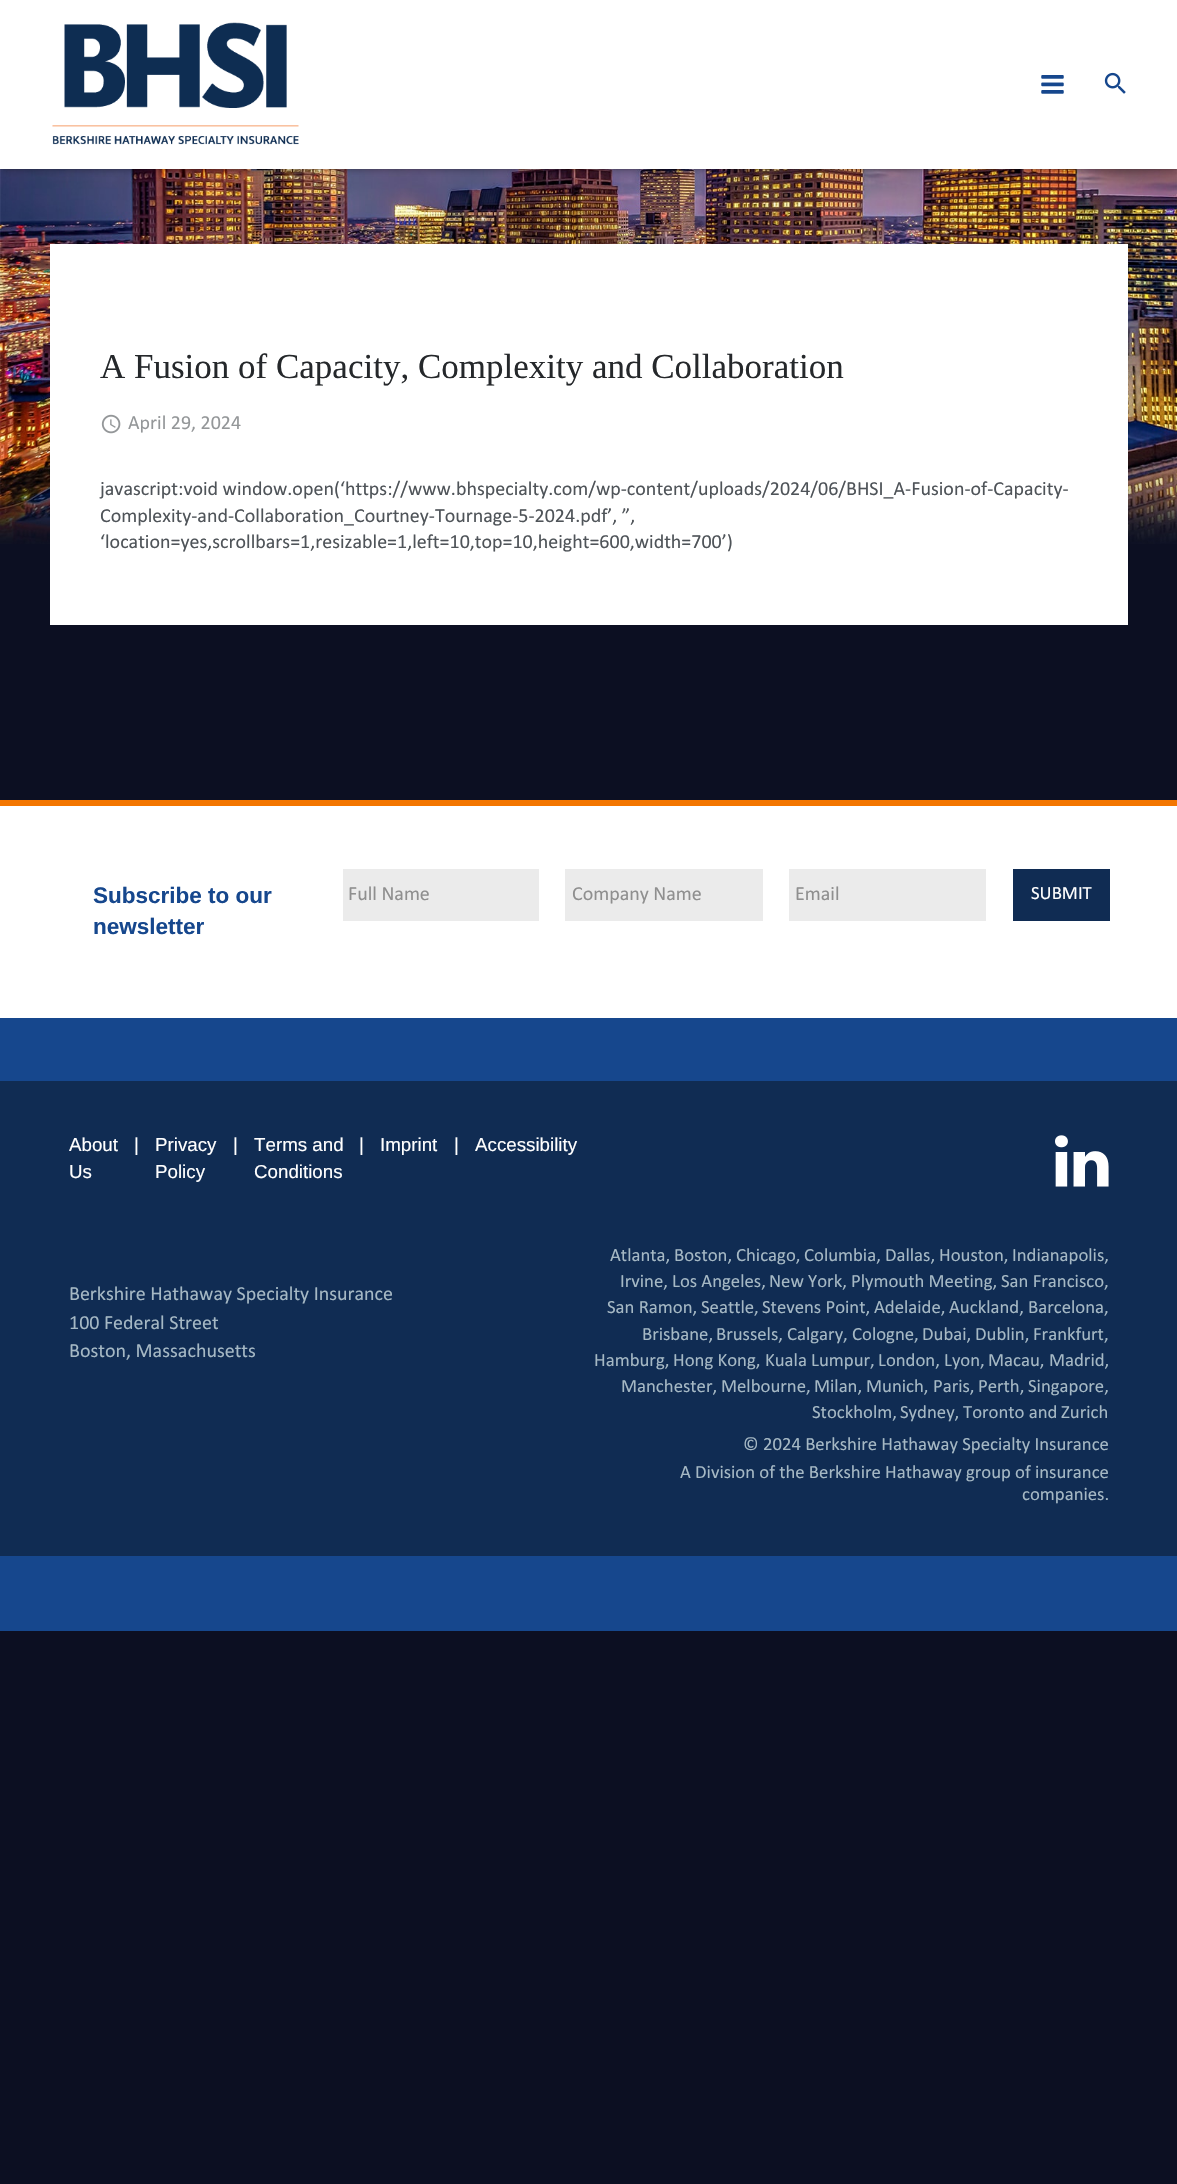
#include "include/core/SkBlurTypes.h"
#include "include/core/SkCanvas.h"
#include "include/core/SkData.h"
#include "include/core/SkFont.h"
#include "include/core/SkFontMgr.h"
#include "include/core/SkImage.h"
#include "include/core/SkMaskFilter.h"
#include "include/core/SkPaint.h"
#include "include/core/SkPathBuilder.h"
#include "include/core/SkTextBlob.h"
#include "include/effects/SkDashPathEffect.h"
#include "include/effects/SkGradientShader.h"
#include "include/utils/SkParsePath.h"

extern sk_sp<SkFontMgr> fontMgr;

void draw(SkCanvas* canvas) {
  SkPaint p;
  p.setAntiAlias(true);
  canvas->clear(SkColorSetRGB(12, 15, 34));
  canvas->drawImageRect(SkImages::DeferredFromEncodedData(SkData::MakeFromFileName("images/1.png")), SkRect::MakeLTRB(0, 169, 1177, 544), SkSamplingOptions());
  p.setColor(SkColorSetARGB(13, 0, 0, 0));
  p.setMaskFilter(SkMaskFilter::MakeBlur(kNormal_SkBlurStyle, 0.5f));
  canvas->drawRect(SkRect::MakeLTRB(1, 4, 1176, 170), p);
  p.setMaskFilter(nullptr);
  p.setColor(SkColorSetARGB(56, 0, 0, 0));
  p.setMaskFilter(SkMaskFilter::MakeBlur(kNormal_SkBlurStyle, 3));
  canvas->drawRect(SkRect::MakeLTRB(3, 8, 1175, 171), p);
  p.setMaskFilter(nullptr);
  p.setColor(SK_ColorWHITE);
  canvas->drawRect(SkRect::MakeLTRB(0, 0, 1177, 169), p);
  canvas->drawImageRect(SkImages::DeferredFromEncodedData(SkData::MakeFromFileName("images/2.png")), SkRect::MakeLTRB(52, 22, 299, 145), SkSamplingOptions());
  canvas->drawImageRect(SkImages::DeferredFromEncodedData(SkData::MakeFromFileName("images/3.png")), SkRect::MakeLTRB(1041, 75, 1064, 94), SkSamplingOptions());
  canvas->drawImageRect(SkImages::DeferredFromEncodedData(SkData::MakeFromFileName("images/4.png")), SkRect::MakeLTRB(1104, 72, 1126, 94), SkSamplingOptions());
  canvas->drawRect(SkRect::MakeLTRB(50, 244, 1128, 625), p);
  canvas->drawImageRect(SkImages::DeferredFromEncodedData(SkData::MakeFromFileName("images/5.png")), SkRect::MakeLTRB(101, 414, 121, 434), SkSamplingOptions());
  canvas->drawRect(SkRect::MakeLTRB(0, 806, 1177, 1018), p);
  p.setColor(SkColorSetRGB(243, 118, 0));
  canvas->drawRect(SkRect::MakeLTRB(0, 800, 1177, 806), p);
  p.setColor(SkColorSetRGB(235, 235, 235));
  canvas->drawRect(SkRect::MakeLTRB(343, 869, 539, 921), p);
  canvas->drawRect(SkRect::MakeLTRB(565, 869, 763, 921), p);
  canvas->drawRect(SkRect::MakeLTRB(789, 869, 986, 921), p);
  p.setColor(SkColorSetRGB(16, 44, 83));
  canvas->drawRect(SkRect::MakeLTRB(1013, 869, 1110, 921), p);
  p.setColor(SkColorSetRGB(22, 71, 141));
  canvas->drawRect(SkRect::MakeLTRB(0, 1018, 1177, 1631), p);
  p.setColor(SkColorSetRGB(16, 44, 83));
  canvas->drawRect(SkRect::MakeLTRB(0, 1081, 1177, 1556), p);
  canvas->drawImageRect(SkImages::DeferredFromEncodedData(SkData::MakeFromFileName("images/6.png")), SkRect::MakeLTRB(1055, 1135, 1109, 1187), SkSamplingOptions());
  SkFont font1(fontMgr->matchFamilyStyle("Liberation Serif", SkFontStyle::Normal()), 35);
  font1.setSubpixel(true);
  p.setColor(SkColorSetRGB(37, 40, 43));
  canvas->drawString("A Fusion of Capacity, Complexity and Collaboration", 100, 378, font1, p);
  SkFont font2(fontMgr->matchFamilyStyle("Calibri", SkFontStyle::Normal()), 20);
  font2.setSubpixel(true);
  p.setColor(SkColorSetRGB(148, 151, 153));
  canvas->drawString("April 29, 2024", 128, 429, font2, p);
  p.setColor(SkColorSetRGB(79, 84, 89));
  canvas->drawString("javascript:void window.open(‘https://www.bhspecialty.com/wp-content/uploads/2024/06/BHSI_A-Fusion-of-Capacity-", 100, 495, font2, p);
  canvas->drawString("Complexity-and-Collaboration_Courtney-Tournage-5-2024.pdf’, ”,", 100, 522, font2, p);
  canvas->drawString("‘location=yes,scrollbars=1,resizable=1,left=10,top=10,height=600,width=700’)", 100, 548, font2, p);
  SkFont font3(fontMgr->matchFamilyStyle("Liberation Sans", SkFontStyle::Bold()), 22.5f);
  font3.setSubpixel(true);
  p.setColor(SkColorSetRGB(22, 71, 141));
  canvas->drawString("Subscribe to our", 93, 903, font3, p);
  canvas->drawString("newsletter", 93, 934, font3, p);
  p.setColor(SkColorSetRGB(143, 143, 143));
  canvas->drawString("Full Name", 348, 900, font2, p);
  canvas->drawString("Company Name", 572, 900, font2, p);
  canvas->drawString("Email", 795, 900, font2, p);
  SkFont font4(fontMgr->matchFamilyStyle("Calibri", SkFontStyle::Normal()), 18.75f);
  font4.setSubpixel(true);
  p.setColor(SK_ColorWHITE);
  canvas->drawString("SUBMIT", 1031, 899, font4, p);
  SkFont font5(fontMgr->matchFamilyStyle("Liberation Sans", SkFontStyle::Normal()), 18.75f);
  font5.setSubpixel(true);
  canvas->drawString("About", 69, 1151, font5, p);
  canvas->drawString("Us", 69, 1178, font5, p);
  canvas->drawString("|", 134, 1151, font5, p);
  canvas->drawString("Privacy", 155, 1151, font5, p);
  canvas->drawString("Policy", 155, 1178, font5, p);
  canvas->drawString("|", 233, 1151, font5, p);
  canvas->drawString("Terms and", 254, 1151, font5, p);
  canvas->drawString("Conditions", 254, 1178, font5, p);
  canvas->drawString("|", 359, 1151, font5, p);
  canvas->drawString("Imprint", 380, 1151, font5, p);
  canvas->drawString("|", 454, 1151, font5, p);
  canvas->drawString("Accessibility", 475, 1151, font5, p);
  p.setColor(SkColorSetRGB(165, 184, 196));
  canvas->drawString("Berkshire Hathaway Specialty Insurance", 69, 1300, font2, p);
  canvas->drawString("100 Federal Street", 69, 1329, font2, p);
  canvas->drawString("Boston, Massachusetts", 69, 1357, font2, p);
  canvas->drawString("Atlanta,", 610, 1261, font4, p);
  canvas->drawString("Boston,", 674, 1261, font4, p);
  canvas->drawString("Chicago,", 736, 1261, font4, p);
  canvas->drawString("Columbia,", 804, 1261, font4, p);
  canvas->drawString("Dallas,", 885, 1261, font4, p);
  canvas->drawString("Houston,", 939, 1261, font4, p);
  canvas->drawString("Indianapolis,", 1012, 1261, font4, p);
  canvas->drawString("Irvine,", 620, 1287, font4, p);
  canvas->drawString("Los Angeles,", 672, 1287, font4, p);
  canvas->drawString("New York,", 769, 1287, font4, p);
  canvas->drawString("Plymouth Meeting,", 851, 1287, font4, p);
  canvas->drawString("San Francisco,", 1001, 1287, font4, p);
  canvas->drawString("San Ramon,", 607, 1313, font4, p);
  canvas->drawString("Seattle,", 701, 1313, font4, p);
  canvas->drawString("Stevens Point,", 762, 1313, font4, p);
  canvas->drawString("Adelaide,", 874, 1313, font4, p);
  canvas->drawString("Auckland,", 949, 1313, font4, p);
  canvas->drawString("Barcelona,", 1028, 1313, font4, p);
  canvas->drawString("Brisbane,", 642, 1340, font4, p);
  canvas->drawString("Brussels,", 716, 1340, font4, p);
  canvas->drawString("Calgary,", 787, 1340, font4, p);
  canvas->drawString("Cologne,", 852, 1340, font4, p);
  canvas->drawString("Dubai,", 922, 1340, font4, p);
  canvas->drawString("Dublin,", 975, 1340, font4, p);
  canvas->drawString("Frankfurt,", 1033, 1340, font4, p);
  canvas->drawString("Hamburg,", 594, 1366, font4, p);
  canvas->drawString("Hong Kong,", 673, 1366, font4, p);
  canvas->drawString("Kuala Lumpur,", 765, 1366, font4, p);
  canvas->drawString("London,", 878, 1366, font4, p);
  canvas->drawString("Lyon,", 944, 1366, font4, p);
  canvas->drawString("Macau,", 988, 1366, font4, p);
  canvas->drawString("Madrid,", 1049, 1366, font4, p);
  canvas->drawString("Manchester,", 621, 1392, font4, p);
  canvas->drawString("Melbourne,", 721, 1392, font4, p);
  canvas->drawString("Milan,", 814, 1392, font4, p);
  canvas->drawString("Munich,", 866, 1392, font4, p);
  canvas->drawString("Paris,", 933, 1392, font4, p);
  canvas->drawString("Perth,", 978, 1392, font4, p);
  canvas->drawString("Singapore,", 1028, 1392, font4, p);
  canvas->drawString("Stockholm,", 812, 1418, font4, p);
  canvas->drawString("Sydney,", 900, 1418, font4, p);
  canvas->drawString("Toronto and", 963, 1418, font4, p);
  canvas->drawString("Zurich", 1061, 1418, font4, p);
  canvas->drawString("© 2024 Berkshire Hathaway Specialty Insurance", 743, 1450, font4, p);
  canvas->drawString("A Division of the Berkshire Hathaway group of insurance", 680, 1478, font4, p);
  canvas->drawString("companies.", 1022, 1500, font4, p);
}
